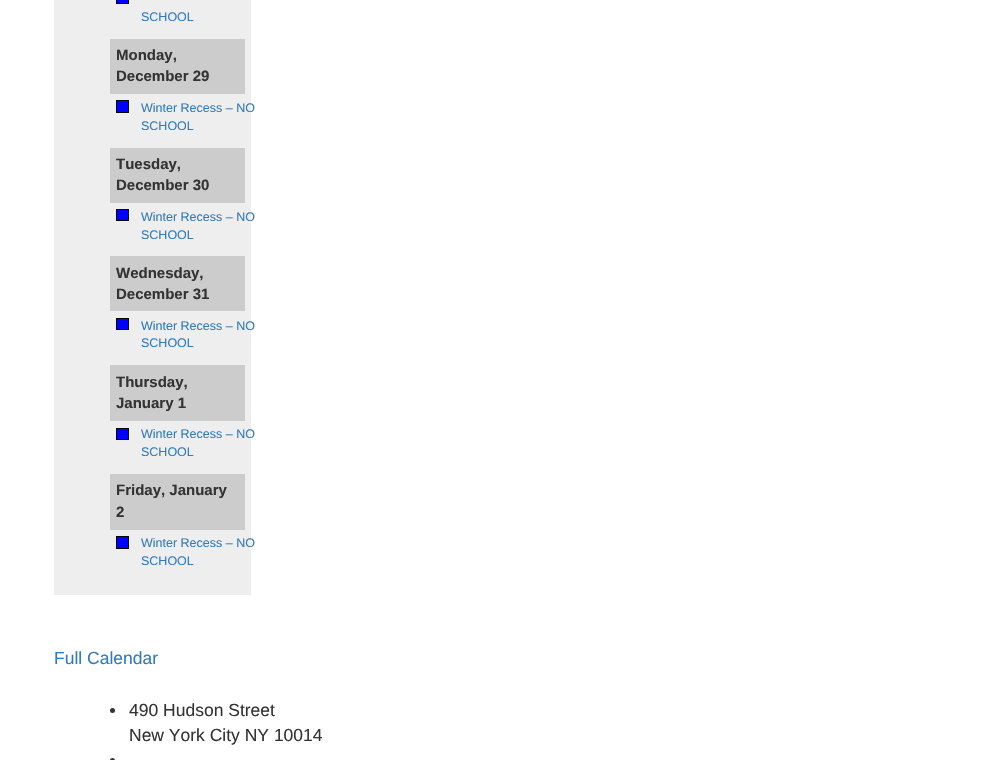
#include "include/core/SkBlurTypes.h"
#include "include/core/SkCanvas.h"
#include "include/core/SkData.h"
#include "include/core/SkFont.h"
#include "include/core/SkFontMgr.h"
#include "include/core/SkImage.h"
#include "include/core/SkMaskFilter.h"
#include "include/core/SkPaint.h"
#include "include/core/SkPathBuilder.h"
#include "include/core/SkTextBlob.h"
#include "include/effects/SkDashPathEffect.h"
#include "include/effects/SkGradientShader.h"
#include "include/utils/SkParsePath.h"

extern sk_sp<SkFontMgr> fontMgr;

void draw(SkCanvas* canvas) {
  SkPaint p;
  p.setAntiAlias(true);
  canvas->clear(SK_ColorWHITE);
  p.setColor(SkColorSetRGB(238, 238, 238));
  canvas->drawRect(SkRect::MakeLTRB(54, 0, 251, 595), p);
  p.setColor(SkColorSetRGB(0, 0, 255));
  canvas->drawRect(SkRect::MakeLTRB(116.5f, -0.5f, 128.5f, 3.5f), p);
  p.setStyle(SkPaint::kStroke_Style);
  p.setStrokeWidth(1);
  p.setColor(SK_ColorBLACK);
  canvas->drawRect(SkRect::MakeLTRB(116.5f, -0.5f, 128.5f, 3.5f), p);
  p.setStyle(SkPaint::kFill_Style);
  p.setColor(SkColorSetRGB(204, 204, 204));
  canvas->drawRect(SkRect::MakeLTRB(110, 39, 245, 94), p);
  p.setColor(SkColorSetRGB(0, 0, 255));
  canvas->drawRect(SkRect::MakeLTRB(116.5f, 100.5f, 128.5f, 112.5f), p);
  p.setStyle(SkPaint::kStroke_Style);
  p.setColor(SK_ColorBLACK);
  canvas->drawRect(SkRect::MakeLTRB(116.5f, 100.5f, 128.5f, 112.5f), p);
  p.setStyle(SkPaint::kFill_Style);
  p.setColor(SkColorSetRGB(204, 204, 204));
  canvas->drawRect(SkRect::MakeLTRB(110, 148, 245, 203), p);
  p.setColor(SkColorSetRGB(0, 0, 255));
  canvas->drawRect(SkRect::MakeLTRB(116.5f, 209.5f, 128.5f, 220.5f), p);
  p.setStyle(SkPaint::kStroke_Style);
  p.setColor(SK_ColorBLACK);
  canvas->drawRect(SkRect::MakeLTRB(116.5f, 209.5f, 128.5f, 220.5f), p);
  p.setStyle(SkPaint::kFill_Style);
  p.setColor(SkColorSetRGB(204, 204, 204));
  canvas->drawRect(SkRect::MakeLTRB(110, 256, 245, 311), p);
  p.setColor(SkColorSetRGB(0, 0, 255));
  canvas->drawRect(SkRect::MakeLTRB(116.5f, 318.5f, 128.5f, 329.5f), p);
  p.setStyle(SkPaint::kStroke_Style);
  p.setColor(SK_ColorBLACK);
  canvas->drawRect(SkRect::MakeLTRB(116.5f, 318.5f, 128.5f, 329.5f), p);
  p.setStyle(SkPaint::kFill_Style);
  p.setColor(SkColorSetRGB(204, 204, 204));
  canvas->drawRect(SkRect::MakeLTRB(110, 365, 245, 421), p);
  p.setColor(SkColorSetRGB(0, 0, 255));
  canvas->drawRect(SkRect::MakeLTRB(116.5f, 428.5f, 128.5f, 439.5f), p);
  p.setStyle(SkPaint::kStroke_Style);
  p.setColor(SK_ColorBLACK);
  canvas->drawRect(SkRect::MakeLTRB(116.5f, 428.5f, 128.5f, 439.5f), p);
  p.setStyle(SkPaint::kFill_Style);
  p.setColor(SkColorSetRGB(204, 204, 204));
  canvas->drawRect(SkRect::MakeLTRB(110, 474, 245, 530), p);
  p.setColor(SkColorSetRGB(0, 0, 255));
  canvas->drawRect(SkRect::MakeLTRB(116.5f, 536.5f, 128.5f, 548.5f), p);
  p.setStyle(SkPaint::kStroke_Style);
  p.setColor(SK_ColorBLACK);
  canvas->drawRect(SkRect::MakeLTRB(116.5f, 536.5f, 128.5f, 548.5f), p);
  p.setStyle(SkPaint::kFill_Style);
  p.setColor(SkColorSetRGB(51, 51, 51));
  canvas->drawCircle(112.5f, 710.5f, 2.5f, p);
  canvas->drawCircle(112.5f, 760.5f, 2.5f, p);
  SkFont font1(fontMgr->matchFamilyStyle("Liberation Sans", SkFontStyle::Normal()), 12.5f);
  font1.setSubpixel(true);
  p.setColor(SkColorSetRGB(51, 122, 183));
  canvas->drawString("SCHOOL", 141, 21, font1, p);
  SkFont font2(fontMgr->matchFamilyStyle("Liberation Sans", SkFontStyle::Bold()), 15);
  font2.setSubpixel(true);
  p.setColor(SkColorSetRGB(51, 51, 51));
  canvas->drawString("Monday,", 116, 60, font2, p);
  canvas->drawString("December 29", 116, 81, font2, p);
  p.setColor(SkColorSetRGB(51, 122, 183));
  canvas->drawString("Winter Recess – NO", 141, 112, font1, p);
  canvas->drawString("SCHOOL", 141, 130, font1, p);
  p.setColor(SkColorSetRGB(51, 51, 51));
  canvas->drawString("Tuesday,", 116, 169, font2, p);
  canvas->drawString("December 30", 116, 190, font2, p);
  p.setColor(SkColorSetRGB(51, 122, 183));
  canvas->drawString("Winter Recess – NO", 141, 221, font1, p);
  canvas->drawString("SCHOOL", 141, 239, font1, p);
  p.setColor(SkColorSetRGB(51, 51, 51));
  canvas->drawString("Wednesday,", 116, 278, font2, p);
  canvas->drawString("December 31", 116, 299, font2, p);
  p.setColor(SkColorSetRGB(51, 122, 183));
  canvas->drawString("Winter Recess – NO", 141, 330, font1, p);
  canvas->drawString("SCHOOL", 141, 347, font1, p);
  p.setColor(SkColorSetRGB(51, 51, 51));
  canvas->drawString("Thursday,", 116, 387, font2, p);
  canvas->drawString("January 1", 116, 408, font2, p);
  p.setColor(SkColorSetRGB(51, 122, 183));
  canvas->drawString("Winter Recess – NO", 141, 438, font1, p);
  canvas->drawString("SCHOOL", 141, 456, font1, p);
  p.setColor(SkColorSetRGB(51, 51, 51));
  canvas->drawString("Friday, January", 116, 495, font2, p);
  canvas->drawString("2", 116, 517, font2, p);
  p.setColor(SkColorSetRGB(51, 122, 183));
  canvas->drawString("Winter Recess – NO", 141, 547, font1, p);
  canvas->drawString("SCHOOL", 141, 565, font1, p);
  SkFont font3(fontMgr->matchFamilyStyle("Liberation Sans", SkFontStyle::Normal()), 17.5f);
  font3.setSubpixel(true);
  canvas->drawString("Full Calendar", 54, 664, font3, p);
  p.setColor(SkColorSetRGB(51, 51, 51));
  canvas->drawString("490 Hudson Street", 129, 716, font3, p);
  canvas->drawString("New York City NY 10014", 129, 741, font3, p);
}
